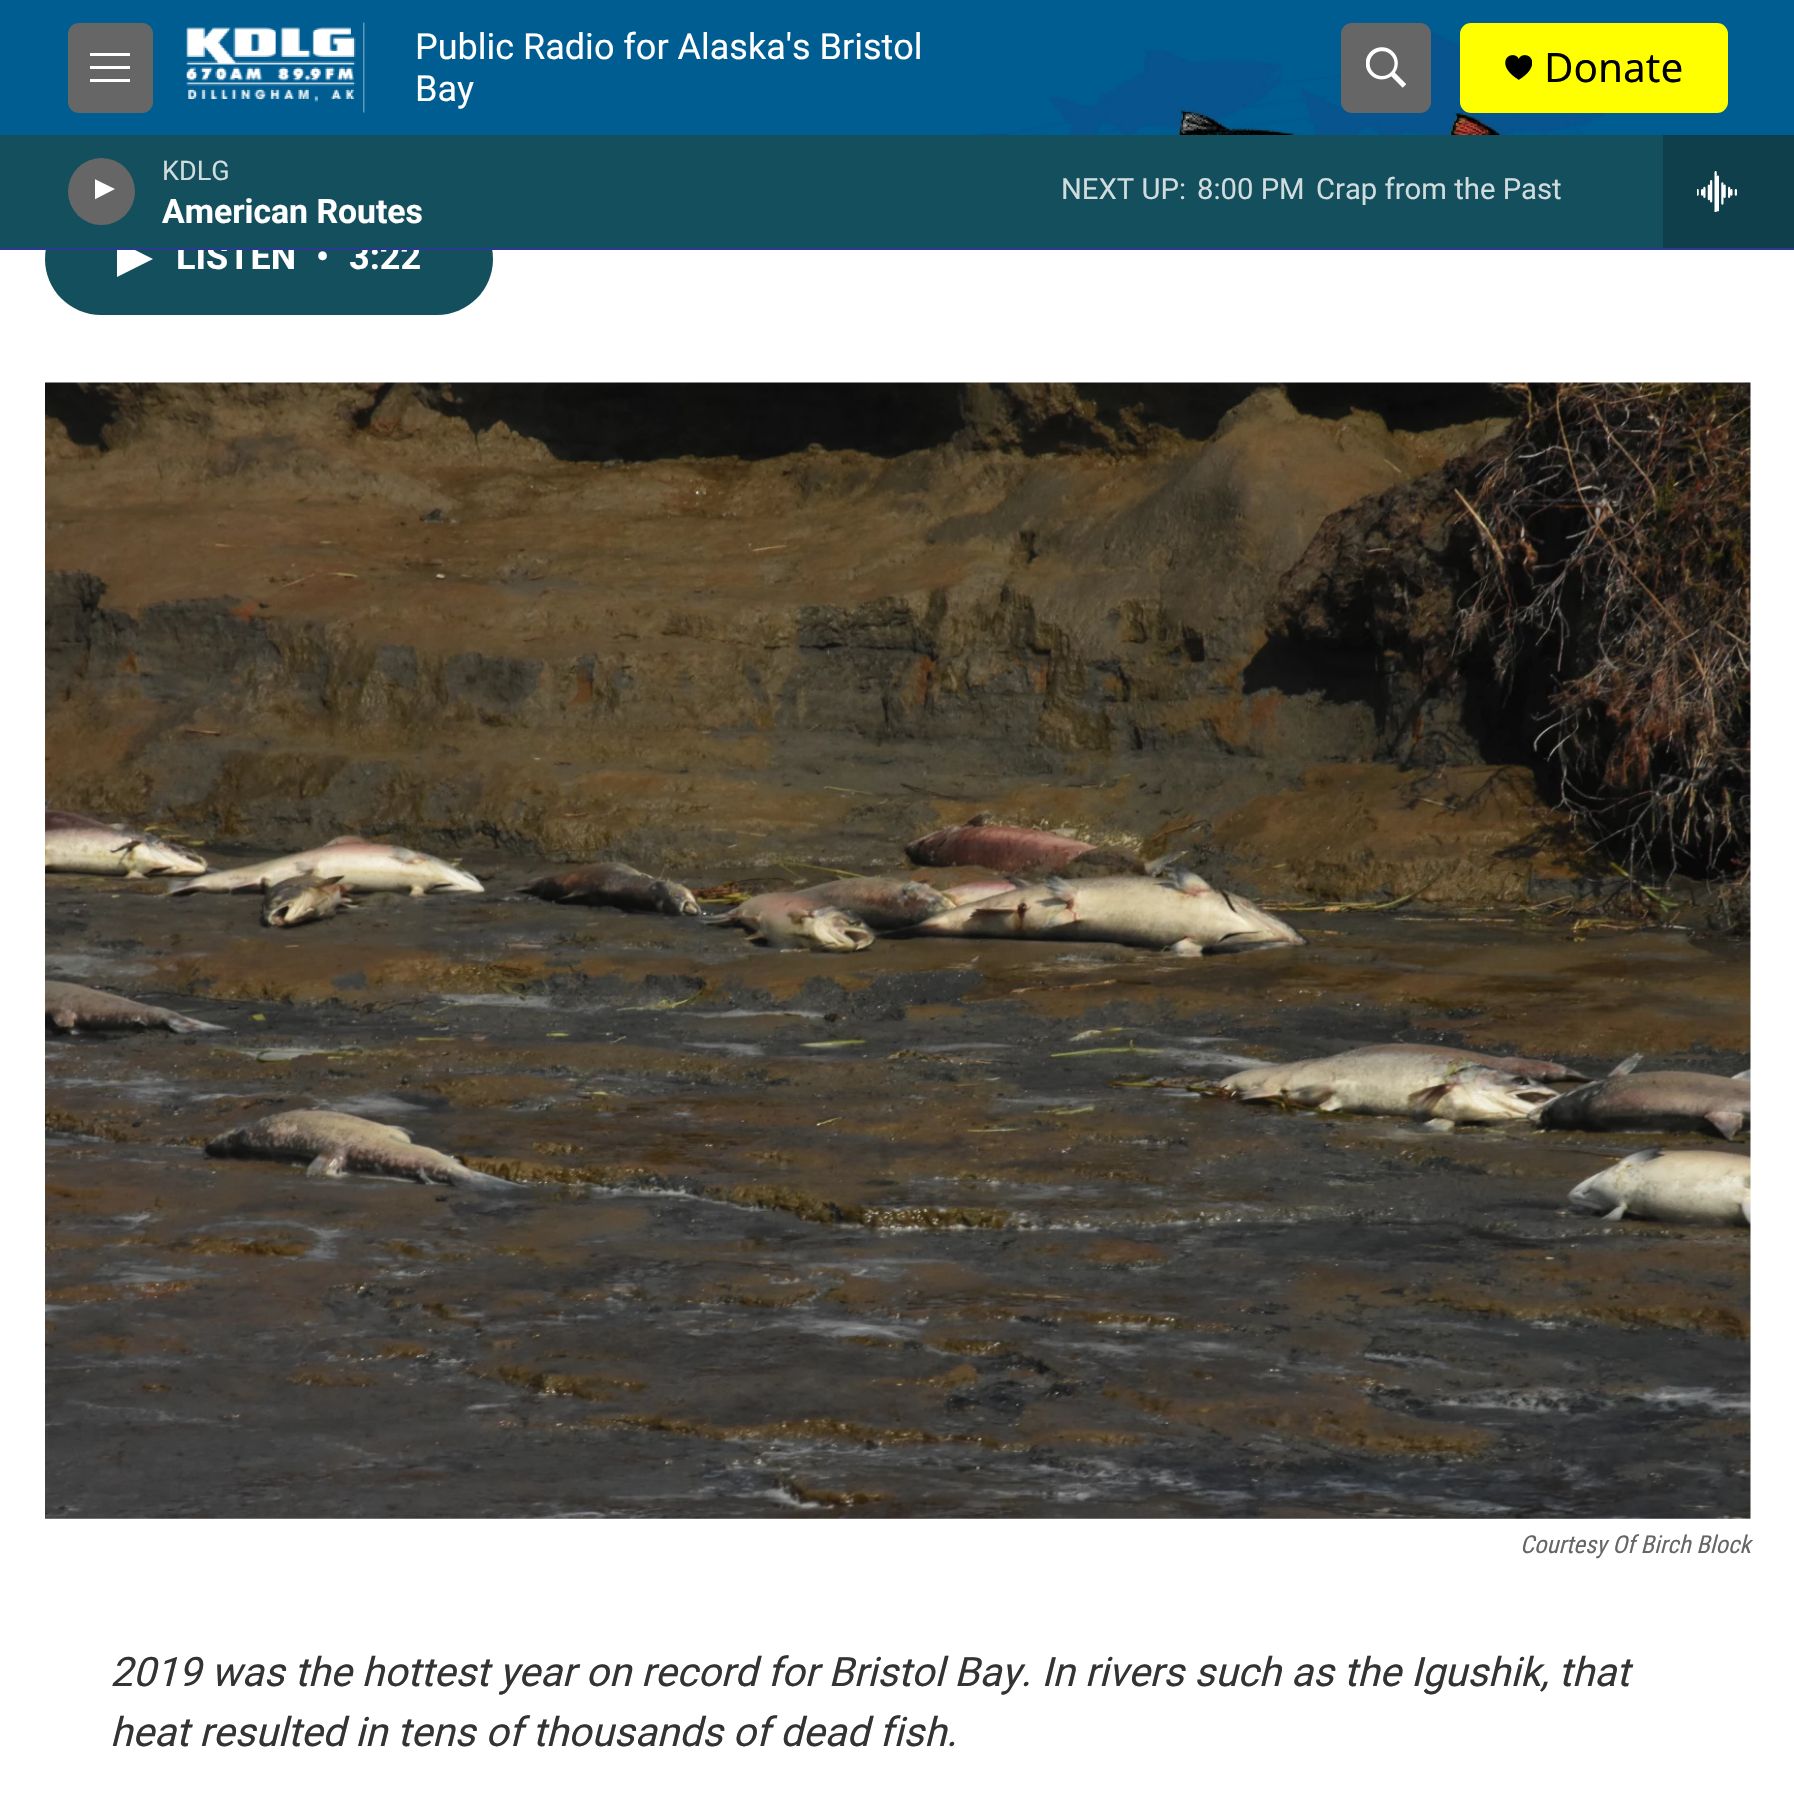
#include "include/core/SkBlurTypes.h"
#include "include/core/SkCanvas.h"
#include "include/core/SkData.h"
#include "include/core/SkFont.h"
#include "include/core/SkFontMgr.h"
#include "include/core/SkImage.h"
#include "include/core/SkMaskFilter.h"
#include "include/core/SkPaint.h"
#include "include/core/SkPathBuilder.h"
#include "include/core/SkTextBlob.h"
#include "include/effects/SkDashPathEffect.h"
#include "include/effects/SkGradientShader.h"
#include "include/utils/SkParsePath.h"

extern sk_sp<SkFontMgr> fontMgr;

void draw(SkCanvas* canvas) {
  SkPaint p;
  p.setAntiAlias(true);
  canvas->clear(SK_ColorWHITE);
  p.setColor(SkColorSetRGB(0, 93, 146));
  canvas->drawRect(SkRect::MakeLTRB(0, 0, 1794, 135), p);
  canvas->drawImageRect(SkImages::DeferredFromEncodedData(SkData::MakeFromFileName("images/1.png")), SkRect::MakeLTRB(981, 26, 1617, 135), SkSamplingOptions());
  p.setColor(SkColorSetRGB(102, 102, 102));
  canvas->drawRoundRect(SkRect::MakeLTRB(68, 23, 153, 113), 11, 11, p);
  p.setColor(SK_ColorWHITE);
  canvas->drawPath(SkPathBuilder(SkPathFillType::kEvenOdd).moveTo(90, 69).lineTo(90, 66).lineTo(130, 66).lineTo(130, 69).close().moveTo(90, 56).lineTo(90, 53).lineTo(130, 53).lineTo(130, 56).close().moveTo(90, 82).lineTo(90, 79).lineTo(130, 79).lineTo(130, 82).close().detach(), p);
  canvas->drawImageRect(SkImages::DeferredFromEncodedData(SkData::MakeFromFileName("images/2.png")), SkRect::MakeLTRB(186, 22, 365, 113), SkSamplingOptions());
  p.setColor(SkColorSetRGB(102, 102, 102));
  canvas->drawRoundRect(SkRect::MakeLTRB(1341, 23, 1431, 113), 11, 11, p);
  canvas->drawImageRect(SkImages::DeferredFromEncodedData(SkData::MakeFromFileName("images/3.png")), SkRect::MakeLTRB(1366, 47, 1406, 88), SkSamplingOptions());
  p.setColor(SkColorSetRGB(255, 255, 0));
  canvas->drawRoundRect(SkRect::MakeLTRB(1460, 23, 1728, 113), 11, 11, p);
  canvas->drawImageRect(SkImages::DeferredFromEncodedData(SkData::MakeFromFileName("images/4.png")), SkRect::MakeLTRB(1505, 55, 1532, 80), SkSamplingOptions());
  p.setColor(SkColorSetRGB(15, 63, 74));
  canvas->drawRect(SkRect::MakeLTRB(1663, 135, 1794, 248), p);
  canvas->drawImageRect(SkImages::DeferredFromEncodedData(SkData::MakeFromFileName("images/5.png")), SkRect::MakeLTRB(1697, 171, 1737, 212), SkSamplingOptions());
  p.setColor(SkColorSetRGB(19, 79, 92));
  canvas->drawRoundRect(SkRect::MakeLTRB(45, 203, 493, 315), 56, 56, p);
  p.setColor(SK_ColorWHITE);
  canvas->drawPath(SkPathBuilder().moveTo(117, 241).lineTo(153, 259).lineTo(117, 277).close().detach(), p);
  canvas->drawImageRect(SkImages::DeferredFromEncodedData(SkData::MakeFromFileName("images/6.png")), SkRect::MakeLTRB(45, 382, 1751, 1519), SkSamplingOptions());
  SkFont font1(fontMgr->matchFamilyStyle("Roboto", SkFontStyle::Normal()), 36);
  font1.setSubpixel(true);
  canvas->drawString("Public Radio for Alaska's Bristol", 415, 59, font1, p);
  canvas->drawString("Bay", 415, 101, font1, p);
  SkFont font2(fontMgr->matchFamilyStyle("Noto Sans", SkFontStyle::Normal()), 40.5f);
  font2.setSubpixel(true);
  p.setColor(SK_ColorBLACK);
  canvas->drawString("Donate", 1544, 82, font2, p);
  SkFont font3(fontMgr->matchFamilyStyle("Roboto", SkFontStyle::Bold()), 36);
  font3.setSubpixel(true);
  p.setColor(SK_ColorWHITE);
  canvas->drawString("LISTEN", 176, 269, font3, p);
  canvas->drawString("•", 316, 269, font3, p);
  canvas->drawString("3:22", 349, 269, font3, p);
  p.setColor(SkColorSetRGB(19, 79, 92));
  canvas->drawRect(SkRect::MakeLTRB(0, 135, 1663, 248), p);
  SkFont font4(fontMgr->matchFamilyStyle("Roboto", SkFontStyle::Normal()), 29.25f);
  font4.setSubpixel(true);
  p.setColor(SkColorSetRGB(208, 220, 222));
  canvas->drawString("Crap from the Past", 1316, 199, font4, p);
  canvas->drawString("8:00 PM", 1197, 199, font4, p);
  canvas->drawString("NEXT UP:", 1061, 199, font4, p);
  SkFont font5(fontMgr->matchFamilyStyle("Roboto", SkFontStyle::Normal()), 27);
  font5.setSubpixel(true);
  canvas->drawString("KDLG", 162, 180, font5, p);
  p.setColor(SkColorSetRGB(102, 102, 102));
  canvas->drawCircle(101.5f, 191.5f, 33.5f, p);
  canvas->save();
  canvas->clipRect(SkRect::MakeLTRB(95, 176, 120, 209));
  p.setColor(SK_ColorWHITE);
  canvas->drawPath(SkPathBuilder().moveTo(93.5f, 178.5f).lineTo(115, 189).lineTo(93.5f, 200).close().detach(), p);
  canvas->restore();
  SkFont font6(fontMgr->matchFamilyStyle("Roboto", SkFontStyle::Bold()), 33.75f);
  font6.setSubpixel(true);
  canvas->drawString("American Routes", 162, 223, font6, p);
  p.setColor(SkColorSetRGB(43, 56, 148));
  canvas->drawRect(SkRect::MakeLTRB(0, 248, 1794, 250), p);
  SkFont font7(fontMgr->matchFamilyStyle("Roboto Condensed", SkFontStyle::Italic()), 24.75f);
  font7.setSubpixel(true);
  p.setColor(SkColorSetRGB(102, 102, 102));
  canvas->drawString("Courtesy Of Birch Block", 1520, 1553, font7, p);
  SkFont font8(fontMgr->matchFamilyStyle("Roboto", SkFontStyle::Italic()), 40.5f);
  font8.setSubpixel(true);
  p.setColor(SkColorSetRGB(51, 51, 51));
  canvas->drawString("2019 was the hottest year on record for Bristol Bay. In rivers such as the Igushik, that", 110, 1686, font8, p);
  canvas->drawString("heat resulted in tens of thousands of dead fish.", 110, 1746, font8, p);
}
